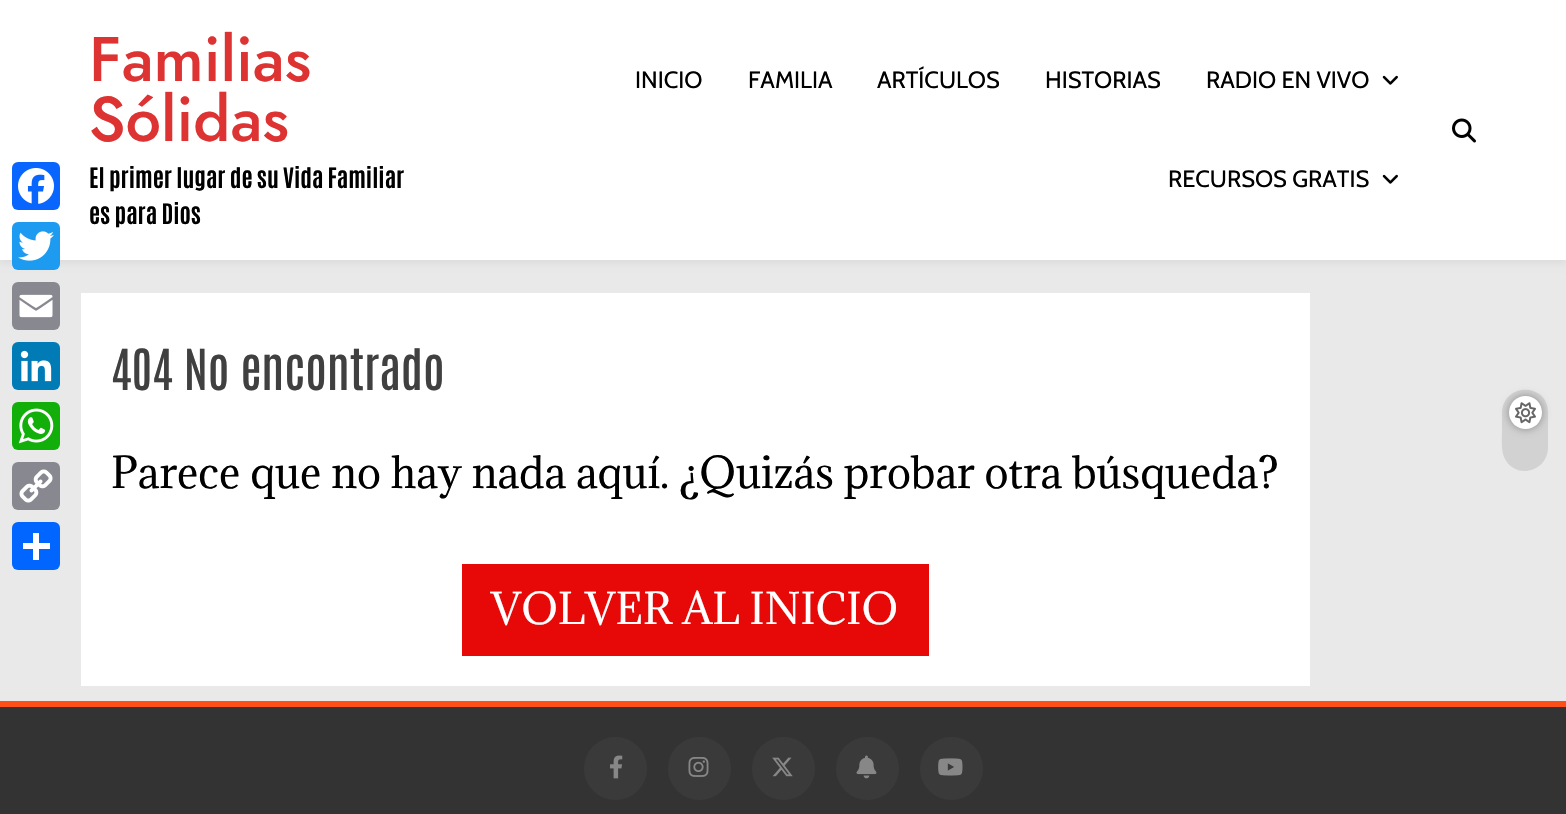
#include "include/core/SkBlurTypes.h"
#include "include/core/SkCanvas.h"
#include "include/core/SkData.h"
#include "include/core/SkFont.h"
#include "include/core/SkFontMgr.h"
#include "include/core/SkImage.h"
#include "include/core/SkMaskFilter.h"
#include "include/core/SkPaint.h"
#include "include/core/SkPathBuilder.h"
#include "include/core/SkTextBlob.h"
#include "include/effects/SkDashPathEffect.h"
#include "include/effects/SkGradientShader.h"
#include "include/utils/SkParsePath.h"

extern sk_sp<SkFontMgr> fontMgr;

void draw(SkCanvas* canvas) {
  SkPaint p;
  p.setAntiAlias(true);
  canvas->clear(SkColorSetRGB(233, 233, 233));
  p.setColor(SkColorSetARGB(13, 0, 0, 0));
  p.setMaskFilter(SkMaskFilter::MakeBlur(kNormal_SkBlurStyle, 3));
  canvas->drawRect(SkRect::MakeLTRB(0, 5, 1566, 264), p);
  p.setMaskFilter(nullptr);
  p.setColor(SK_ColorWHITE);
  canvas->drawRect(SkRect::MakeLTRB(0, 0, 1566, 260), p);
  p.setColor(SkColorSetRGB(8, 102, 255));
  canvas->drawRoundRect(SkRect::MakeLTRB(12, 162, 60, 210), 6, 6, p);
  canvas->drawImageRect(SkImages::DeferredFromEncodedData(SkData::MakeFromFileName("images/1.png")), SkRect::MakeLTRB(18, 168, 54, 204), SkSamplingOptions());
  p.setColor(SkColorSetRGB(29, 155, 240));
  canvas->drawRoundRect(SkRect::MakeLTRB(12, 222, 60, 270), 6, 6, p);
  canvas->drawImageRect(SkImages::DeferredFromEncodedData(SkData::MakeFromFileName("images/2.png")), SkRect::MakeLTRB(18, 231, 54, 261), SkSamplingOptions());
  p.setColor(SkColorSetRGB(136, 137, 144));
  canvas->drawRoundRect(SkRect::MakeLTRB(12, 282, 60, 330), 6, 6, p);
  canvas->drawImageRect(SkImages::DeferredFromEncodedData(SkData::MakeFromFileName("images/3.png")), SkRect::MakeLTRB(19, 294, 53, 318), SkSamplingOptions());
  p.setColor(SkColorSetRGB(0, 123, 181));
  canvas->drawRoundRect(SkRect::MakeLTRB(12, 342, 60, 390), 6, 6, p);
  canvas->drawImageRect(SkImages::DeferredFromEncodedData(SkData::MakeFromFileName("images/4.png")), SkRect::MakeLTRB(20, 350, 52, 382), SkSamplingOptions());
  p.setColor(SkColorSetRGB(18, 175, 10));
  canvas->drawRoundRect(SkRect::MakeLTRB(12, 402, 60, 450), 6, 6, p);
  canvas->drawImageRect(SkImages::DeferredFromEncodedData(SkData::MakeFromFileName("images/5.png")), SkRect::MakeLTRB(18, 408, 54, 444), SkSamplingOptions());
  p.setColor(SkColorSetRGB(136, 137, 144));
  canvas->drawRoundRect(SkRect::MakeLTRB(12, 462, 60, 510), 6, 6, p);
  canvas->drawImageRect(SkImages::DeferredFromEncodedData(SkData::MakeFromFileName("images/6.png")), SkRect::MakeLTRB(19, 469, 53, 503), SkSamplingOptions());
  p.setColor(SkColorSetRGB(1, 102, 255));
  canvas->drawRoundRect(SkRect::MakeLTRB(12, 522, 60, 570), 6, 6, p);
  p.setColor(SK_ColorWHITE);
  canvas->drawRect(SkRect::MakeLTRB(33, 533, 39, 560), p);
  canvas->drawRect(SkRect::MakeLTRB(23, 543, 50, 549), p);
  canvas->drawImageRect(SkImages::DeferredFromEncodedData(SkData::MakeFromFileName("images/7.png")), SkRect::MakeLTRB(1382, 75, 1398, 85), SkSamplingOptions());
  canvas->drawImageRect(SkImages::DeferredFromEncodedData(SkData::MakeFromFileName("images/7.png")), SkRect::MakeLTRB(1382, 174, 1398, 184), SkSamplingOptions());
  canvas->drawImageRect(SkImages::DeferredFromEncodedData(SkData::MakeFromFileName("images/8.png")), SkRect::MakeLTRB(1452, 118, 1476, 143), SkSamplingOptions());
  p.setColor(SkColorSetRGB(210, 210, 210));
  canvas->drawPath(SkPathBuilder().moveTo(1548, 412).lineTo(1548, 448).cubicTo(1547, 473, 1514, 480, 1504, 457).cubicTo(1501, 449, 1502, 438, 1502, 430).lineTo(1502, 412).cubicTo(1504, 382, 1548, 383, 1548, 412).close().detach(), p);
  p.setColor(SkColorSetARGB(89, 0, 0, 0));
  p.setMaskFilter(SkMaskFilter::MakeBlur(kNormal_SkBlurStyle, 4));
  canvas->drawRoundRect(SkRect::MakeLTRB(1509, 396, 1542, 429), 16.5f, 16.5f, p);
  p.setMaskFilter(nullptr);
  p.setColor(SK_ColorWHITE);
  canvas->drawCircle(1525.5f, 412.5f, 16.5f, p);
  canvas->drawImageRect(SkImages::DeferredFromEncodedData(SkData::MakeFromFileName("images/9.png")), SkRect::MakeLTRB(1515, 402, 1536, 424), SkSamplingOptions());
  canvas->drawRect(SkRect::MakeLTRB(81, 293, 1310, 686), p);
  p.setColor(SkColorSetRGB(231, 8, 8));
  canvas->drawRect(SkRect::MakeLTRB(462, 564, 929, 656), p);
  p.setColor(SkColorSetRGB(253, 79, 24));
  canvas->drawRect(SkRect::MakeLTRB(0, 701, 1566, 707), p);
  p.setColor(SkColorSetRGB(51, 51, 51));
  canvas->drawRect(SkRect::MakeLTRB(0, 707, 1566, 814), p);
  p.setColor(SkColorSetRGB(58, 58, 58));
  canvas->drawCircle(615.5f, 768.5f, 31.5f, p);
  canvas->drawImageRect(SkImages::DeferredFromEncodedData(SkData::MakeFromFileName("images/10.png")), SkRect::MakeLTRB(610, 755, 623, 779), SkSamplingOptions());
  canvas->drawCircle(699.5f, 768.5f, 31.5f, p);
  canvas->drawImageRect(SkImages::DeferredFromEncodedData(SkData::MakeFromFileName("images/11.png")), SkRect::MakeLTRB(688, 757, 709, 777), SkSamplingOptions());
  canvas->drawCircle(783.5f, 768.5f, 31.5f, p);
  canvas->drawImageRect(SkImages::DeferredFromEncodedData(SkData::MakeFromFileName("images/12.png")), SkRect::MakeLTRB(772, 757, 793, 777), SkSamplingOptions());
  canvas->drawCircle(867.5f, 768.5f, 31.5f, p);
  canvas->drawImageRect(SkImages::DeferredFromEncodedData(SkData::MakeFromFileName("images/13.png")), SkRect::MakeLTRB(856, 755, 877, 779), SkSamplingOptions());
  canvas->drawCircle(951.5f, 768.5f, 31.5f, p);
  canvas->drawImageRect(SkImages::DeferredFromEncodedData(SkData::MakeFromFileName("images/14.png")), SkRect::MakeLTRB(938, 758, 963, 776), SkSamplingOptions());
  SkFont font1(fontMgr->matchFamilyStyle("Jost", SkFontStyle(500, SkFontStyle::kNormal_Width, SkFontStyle::kUpright_Slant)), 63);
  font1.setSubpixel(true);
  p.setColor(SkColorSetRGB(221, 51, 51));
  canvas->drawString("Familias", 89, 81, font1, p);
  canvas->drawString("Sólidas", 89, 141, font1, p);
  SkFont font2(fontMgr->matchFamilyStyle("Antonio", SkFontStyle::Bold()), 24);
  font2.setSubpixel(true);
  p.setColor(SK_ColorBLACK);
  canvas->drawString("El primer lugar de su Vida Familiar", 89, 188, font2, p);
  canvas->drawString("es para Dios", 89, 224, font2, p);
  SkFont font3(fontMgr->matchFamilyStyle("Cabin", SkFontStyle::Normal()), 23.6f);
  font3.setSubpixel(true);
  canvas->drawString("INICIO", 635, 88, font3, p);
  canvas->drawString("FAMILIA", 748, 88, font3, p);
  canvas->drawString("ARTÍCULOS", 877, 88, font3, p);
  canvas->drawString("HISTORIAS", 1045, 88, font3, p);
  canvas->drawString("RADIO EN VIVO", 1206, 88, font3, p);
  canvas->drawString("RECURSOS GRATIS", 1168, 187, font3, p);
  SkFont font4(fontMgr->matchFamilyStyle("Antonio", SkFontStyle(500, SkFontStyle::kNormal_Width, SkFontStyle::kUpright_Slant)), 48);
  font4.setSubpixel(true);
  p.setColor(SkColorSetRGB(64, 64, 64));
  canvas->drawString("404 No encontrado", 111, 390, font4, p);
  SkFont font5(fontMgr->matchFamilyStyle("Adamina", SkFontStyle::Normal()), 40.5f);
  font5.setSubpixel(true);
  p.setColor(SK_ColorBLACK);
  canvas->drawString("Parece que no hay nada aquí. ¿Quizás probar otra búsqueda?", 111, 488, font5, p);
  p.setColor(SK_ColorWHITE);
  canvas->drawString("VOLVER AL INICIO", 491, 624, font5, p);
}
